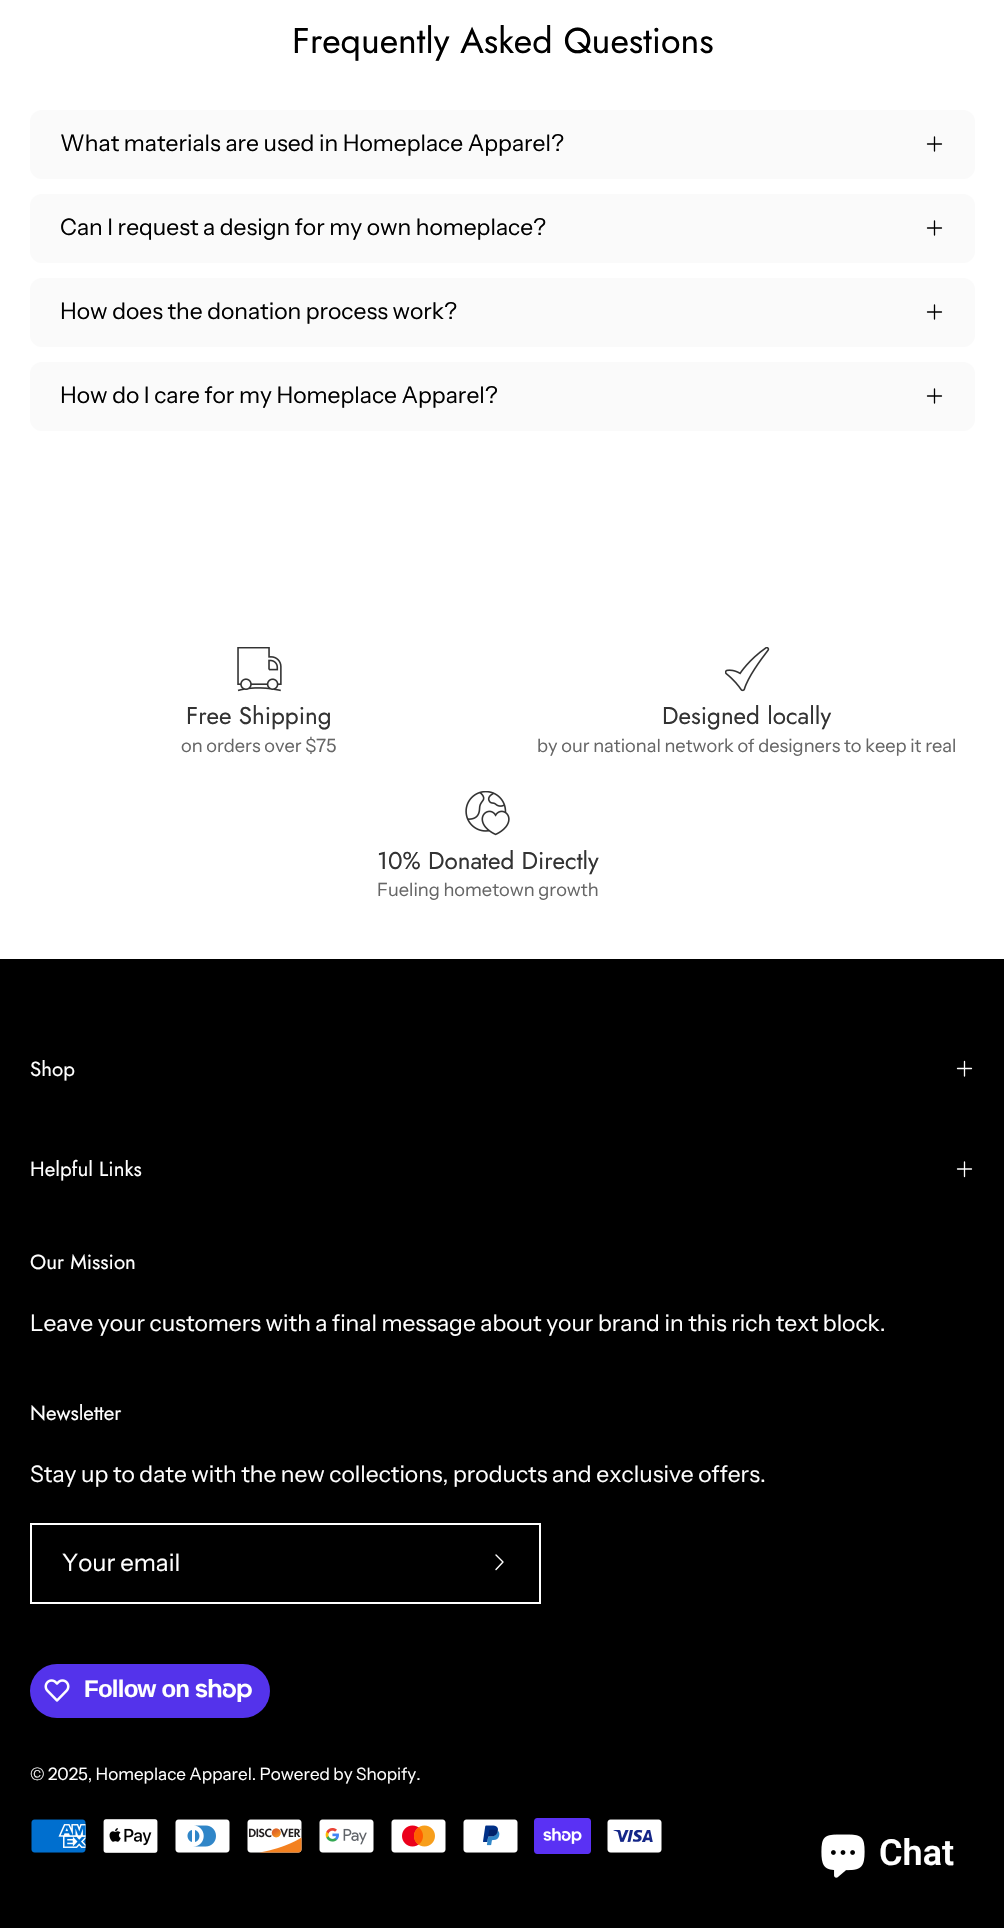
#include "include/core/SkBlurTypes.h"
#include "include/core/SkCanvas.h"
#include "include/core/SkData.h"
#include "include/core/SkFont.h"
#include "include/core/SkFontMgr.h"
#include "include/core/SkImage.h"
#include "include/core/SkMaskFilter.h"
#include "include/core/SkPaint.h"
#include "include/core/SkPathBuilder.h"
#include "include/core/SkTextBlob.h"
#include "include/effects/SkDashPathEffect.h"
#include "include/effects/SkGradientShader.h"
#include "include/utils/SkParsePath.h"

extern sk_sp<SkFontMgr> fontMgr;

void draw(SkCanvas* canvas) {
  SkPaint p;
  p.setAntiAlias(true);
  auto spacedText = [&](const char* s, float x, float y, const SkFont& font, const SkPaint& ink, float letter, float word) {
    std::vector<SkGlyphID> glyphs(font.countText(s, strlen(s), SkTextEncoding::kUTF8));
    std::vector<float> xs(glyphs.size());
    font.textToGlyphs(s, strlen(s), SkTextEncoding::kUTF8, glyphs);
    font.getXPos(glyphs, xs, x);
    float extra = 0;
    for (size_t i = 0; i < glyphs.size(); i++) {
      xs[i] += extra;
      extra += letter + word * (glyphs[i] == font.unicharToGlyph(' '));
    }
    canvas->drawTextBlob(SkTextBlob::MakeFromPosHGlyphs(glyphs, xs, y, font), 0, 0, ink);
  };
  canvas->clear(SK_ColorWHITE);
  p.setColor(SkColorSetRGB(250, 250, 250));
  canvas->drawRoundRect(SkRect::MakeLTRB(30, 110, 975, 179), 12, 12, p);
  p.setStyle(SkPaint::kStroke_Style);
  p.setStrokeWidth(1.3f);
  p.setStrokeCap(SkPaint::kRound_Cap);
  p.setStrokeJoin(SkPaint::kRound_Join);
  p.setColor(SK_ColorBLACK);
  canvas->drawPath(SkPathBuilder().moveTo(927.5f, 144).lineTo(941.5f, 144).moveTo(934.5f, 137).lineTo(934.5f, 151).detach(), p);
  p.setStyle(SkPaint::kFill_Style);
  p.setColor(SkColorSetRGB(250, 250, 250));
  canvas->drawRoundRect(SkRect::MakeLTRB(30, 194, 975, 263), 12, 12, p);
  p.setStyle(SkPaint::kStroke_Style);
  p.setColor(SK_ColorBLACK);
  canvas->drawPath(SkPathBuilder().moveTo(927.5f, 228).lineTo(941.5f, 228).moveTo(934.5f, 221).lineTo(934.5f, 235).detach(), p);
  p.setStyle(SkPaint::kFill_Style);
  p.setColor(SkColorSetRGB(250, 250, 250));
  canvas->drawRoundRect(SkRect::MakeLTRB(30, 278, 975, 347), 12, 12, p);
  p.setStyle(SkPaint::kStroke_Style);
  p.setColor(SK_ColorBLACK);
  canvas->drawPath(SkPathBuilder().moveTo(927.5f, 312).lineTo(941.5f, 312).moveTo(934.5f, 305).lineTo(934.5f, 319).detach(), p);
  p.setStyle(SkPaint::kFill_Style);
  p.setColor(SkColorSetRGB(250, 250, 250));
  canvas->drawRoundRect(SkRect::MakeLTRB(30, 362, 975, 431), 12, 12, p);
  p.setStyle(SkPaint::kStroke_Style);
  p.setColor(SK_ColorBLACK);
  canvas->drawPath(SkPathBuilder().moveTo(927.5f, 396).lineTo(941.5f, 396).moveTo(934.5f, 389).lineTo(934.5f, 403).detach(), p);
  canvas->drawImageRect(SkImages::DeferredFromEncodedData(SkData::MakeFromFileName("images/1.png")), SkRect::MakeLTRB(237, 647, 282, 692), SkSamplingOptions());
  canvas->drawImageRect(SkImages::DeferredFromEncodedData(SkData::MakeFromFileName("images/2.png")), SkRect::MakeLTRB(725, 647, 770, 692), SkSamplingOptions());
  canvas->drawImageRect(SkImages::DeferredFromEncodedData(SkData::MakeFromFileName("images/3.png")), SkRect::MakeLTRB(465, 791, 510, 836), SkSamplingOptions());
  p.setStyle(SkPaint::kFill_Style);
  canvas->drawRect(SkRect::MakeLTRB(0, 959, 1004, 1928), p);
  p.setStyle(SkPaint::kStroke_Style);
  p.setColor(SK_ColorWHITE);
  canvas->drawPath(SkPathBuilder().moveTo(957.5f, 1068.5f).lineTo(971.5f, 1068.5f).moveTo(964.5f, 1061.5f).lineTo(964.5f, 1076).detach(), p);
  canvas->drawPath(SkPathBuilder().moveTo(957.5f, 1169).lineTo(971.5f, 1169).moveTo(964.5f, 1162).lineTo(964.5f, 1176.5f).detach(), p);
  p.setStyle(SkPaint::kFill_Style);
  canvas->drawRect(SkRect::MakeLTRB(30, 1523, 540, 1525), p);
  canvas->drawRect(SkRect::MakeLTRB(30, 1602, 459, 1604), p);
  canvas->drawRect(SkRect::MakeLTRB(30, 1523, 32, 1604), p);
  canvas->drawRect(SkRect::MakeLTRB(539, 1523, 541, 1604), p);
  canvas->drawRect(SkRect::MakeLTRB(459, 1602, 540, 1604), p);
  p.setStyle(SkPaint::kStroke_Style);
  p.setStrokeWidth(1.4f);
  canvas->drawPath(SkPathBuilder().moveTo(496, 1555).lineTo(503, 1562).lineTo(496, 1569.5f).detach(), p);
  p.setStyle(SkPaint::kFill_Style);
  p.setColor(SkColorSetRGB(84, 51, 235));
  canvas->drawRoundRect(SkRect::MakeLTRB(30, 1664, 270, 1718), 27, 27, p);
  canvas->drawImageRect(SkImages::DeferredFromEncodedData(SkData::MakeFromFileName("images/4.png")), SkRect::MakeLTRB(44, 1679, 70, 1702), SkSamplingOptions());
  canvas->drawImageRect(SkImages::DeferredFromEncodedData(SkData::MakeFromFileName("images/5.png")), SkRect::MakeLTRB(195, 1679, 252, 1702), SkSamplingOptions());
  canvas->drawImageRect(SkImages::DeferredFromEncodedData(SkData::MakeFromFileName("images/6.png")), SkRect::MakeLTRB(31, 1819, 86, 1853), SkSamplingOptions());
  canvas->drawImageRect(SkImages::DeferredFromEncodedData(SkData::MakeFromFileName("images/7.png")), SkRect::MakeLTRB(103, 1819, 158, 1853), SkSamplingOptions());
  canvas->drawImageRect(SkImages::DeferredFromEncodedData(SkData::MakeFromFileName("images/8.png")), SkRect::MakeLTRB(175, 1819, 230, 1853), SkSamplingOptions());
  canvas->drawImageRect(SkImages::DeferredFromEncodedData(SkData::MakeFromFileName("images/9.png")), SkRect::MakeLTRB(247, 1819, 302, 1853), SkSamplingOptions());
  canvas->drawImageRect(SkImages::DeferredFromEncodedData(SkData::MakeFromFileName("images/10.png")), SkRect::MakeLTRB(319, 1819, 374, 1853), SkSamplingOptions());
  canvas->drawImageRect(SkImages::DeferredFromEncodedData(SkData::MakeFromFileName("images/11.png")), SkRect::MakeLTRB(391, 1819, 446, 1853), SkSamplingOptions());
  canvas->drawImageRect(SkImages::DeferredFromEncodedData(SkData::MakeFromFileName("images/12.png")), SkRect::MakeLTRB(463, 1819, 518, 1853), SkSamplingOptions());
  canvas->drawImageRect(SkImages::DeferredFromEncodedData(SkData::MakeFromFileName("images/13.png")), SkRect::MakeLTRB(534, 1818, 591, 1854), SkSamplingOptions());
  canvas->drawImageRect(SkImages::DeferredFromEncodedData(SkData::MakeFromFileName("images/14.png")), SkRect::MakeLTRB(607, 1819, 662, 1853), SkSamplingOptions());
  canvas->drawImageRect(SkImages::DeferredFromEncodedData(SkData::MakeFromFileName("images/15.png")), SkRect::MakeLTRB(821, 1834, 865, 1878), SkSamplingOptions());
  SkFont font1(fontMgr->matchFamilyStyle("Jost", SkFontStyle::Normal()), 35.75f);
  font1.setSubpixel(true);
  p.setColor(SK_ColorBLACK);
  canvas->drawString("Frequently Asked Questions", 292, 53, font1, p);
  SkFont font2(fontMgr->matchFamilyStyle("Instrument Sans", SkFontStyle::Normal()), 22.8f);
  font2.setSubpixel(true);
  canvas->drawString("What materials are used in Homeplace Apparel?", 60, 151, font2, p);
  canvas->drawString("Can I request a design for my own homeplace?", 60, 235, font2, p);
  canvas->drawString("How does the donation process work?", 60, 319, font2, p);
  canvas->drawString("How do I care for my Homeplace Apparel?", 60, 403, font2, p);
  SkFont font3(fontMgr->matchFamilyStyle("Jost", SkFontStyle::Normal()), 24.25f);
  font3.setSubpixel(true);
  p.setColor(SkColorSetRGB(51, 51, 51));
  canvas->drawString("Free Shipping", 186, 724, font3, p);
  SkFont font4(fontMgr->matchFamilyStyle("Instrument Sans", SkFontStyle::Normal()), 18.25f);
  font4.setSubpixel(true);
  p.setColor(SkColorSetRGB(102, 102, 102));
  canvas->drawString("on orders over $75", 181, 752, font4, p);
  p.setColor(SkColorSetRGB(51, 51, 51));
  canvas->drawString("Designed locally", 662, 724, font3, p);
  p.setColor(SkColorSetRGB(102, 102, 102));
  canvas->drawString("by our national network of designers to keep it real", 537, 752, font4, p);
  p.setColor(SkColorSetRGB(51, 51, 51));
  canvas->drawString("10% Donated Directly", 377, 869, font3, p);
  p.setColor(SkColorSetRGB(102, 102, 102));
  canvas->drawString("Fueling hometown growth", 377, 896, font4, p);
  SkFont font5(fontMgr->matchFamilyStyle("Jost", SkFontStyle::Normal()), 20.5f);
  font5.setSubpixel(true);
  p.setColor(SK_ColorWHITE);
  canvas->drawString("Shop", 30, 1076, font5, p);
  canvas->drawString("Helpful Links", 30, 1176, font5, p);
  canvas->drawString("Our Mission", 30, 1269, font5, p);
  canvas->drawString("Leave your customers with a final message about your brand in this rich text block.", 30, 1331, font2, p);
  canvas->drawString("Newsletter", 30, 1420, font5, p);
  canvas->drawString("Stay up to date with the new collections, products and exclusive offers.", 30, 1482, font2, p);
  SkFont font6(fontMgr->matchFamilyStyle("Instrument Sans", SkFontStyle::Normal()), 24);
  font6.setSubpixel(true);
  canvas->drawString("Your email", 62, 1571, font6, p);
  SkFont font7(fontMgr->matchFamilyStyle("Liberation Sans", SkFontStyle::Bold()), 24);
  font7.setSubpixel(true);
  spacedText("Follow on", 84, 1697, font7, p, -0.75f, 0);
  SkFont font8(fontMgr->matchFamilyStyle("Instrument Sans", SkFontStyle::Normal()), 17.1f);
  font8.setSubpixel(true);
  canvas->drawString("© 2025, Homeplace Apparel. Powered by Shopify.", 30, 1780, font8, p);
  SkFont font9(fontMgr->matchFamilyStyle("Roboto", SkFontStyle(600, SkFontStyle::kNormal_Width, SkFontStyle::kUpright_Slant)), 36);
  font9.setSubpixel(true);
  canvas->drawString("Chat", 879, 1865, font9, p);
}
